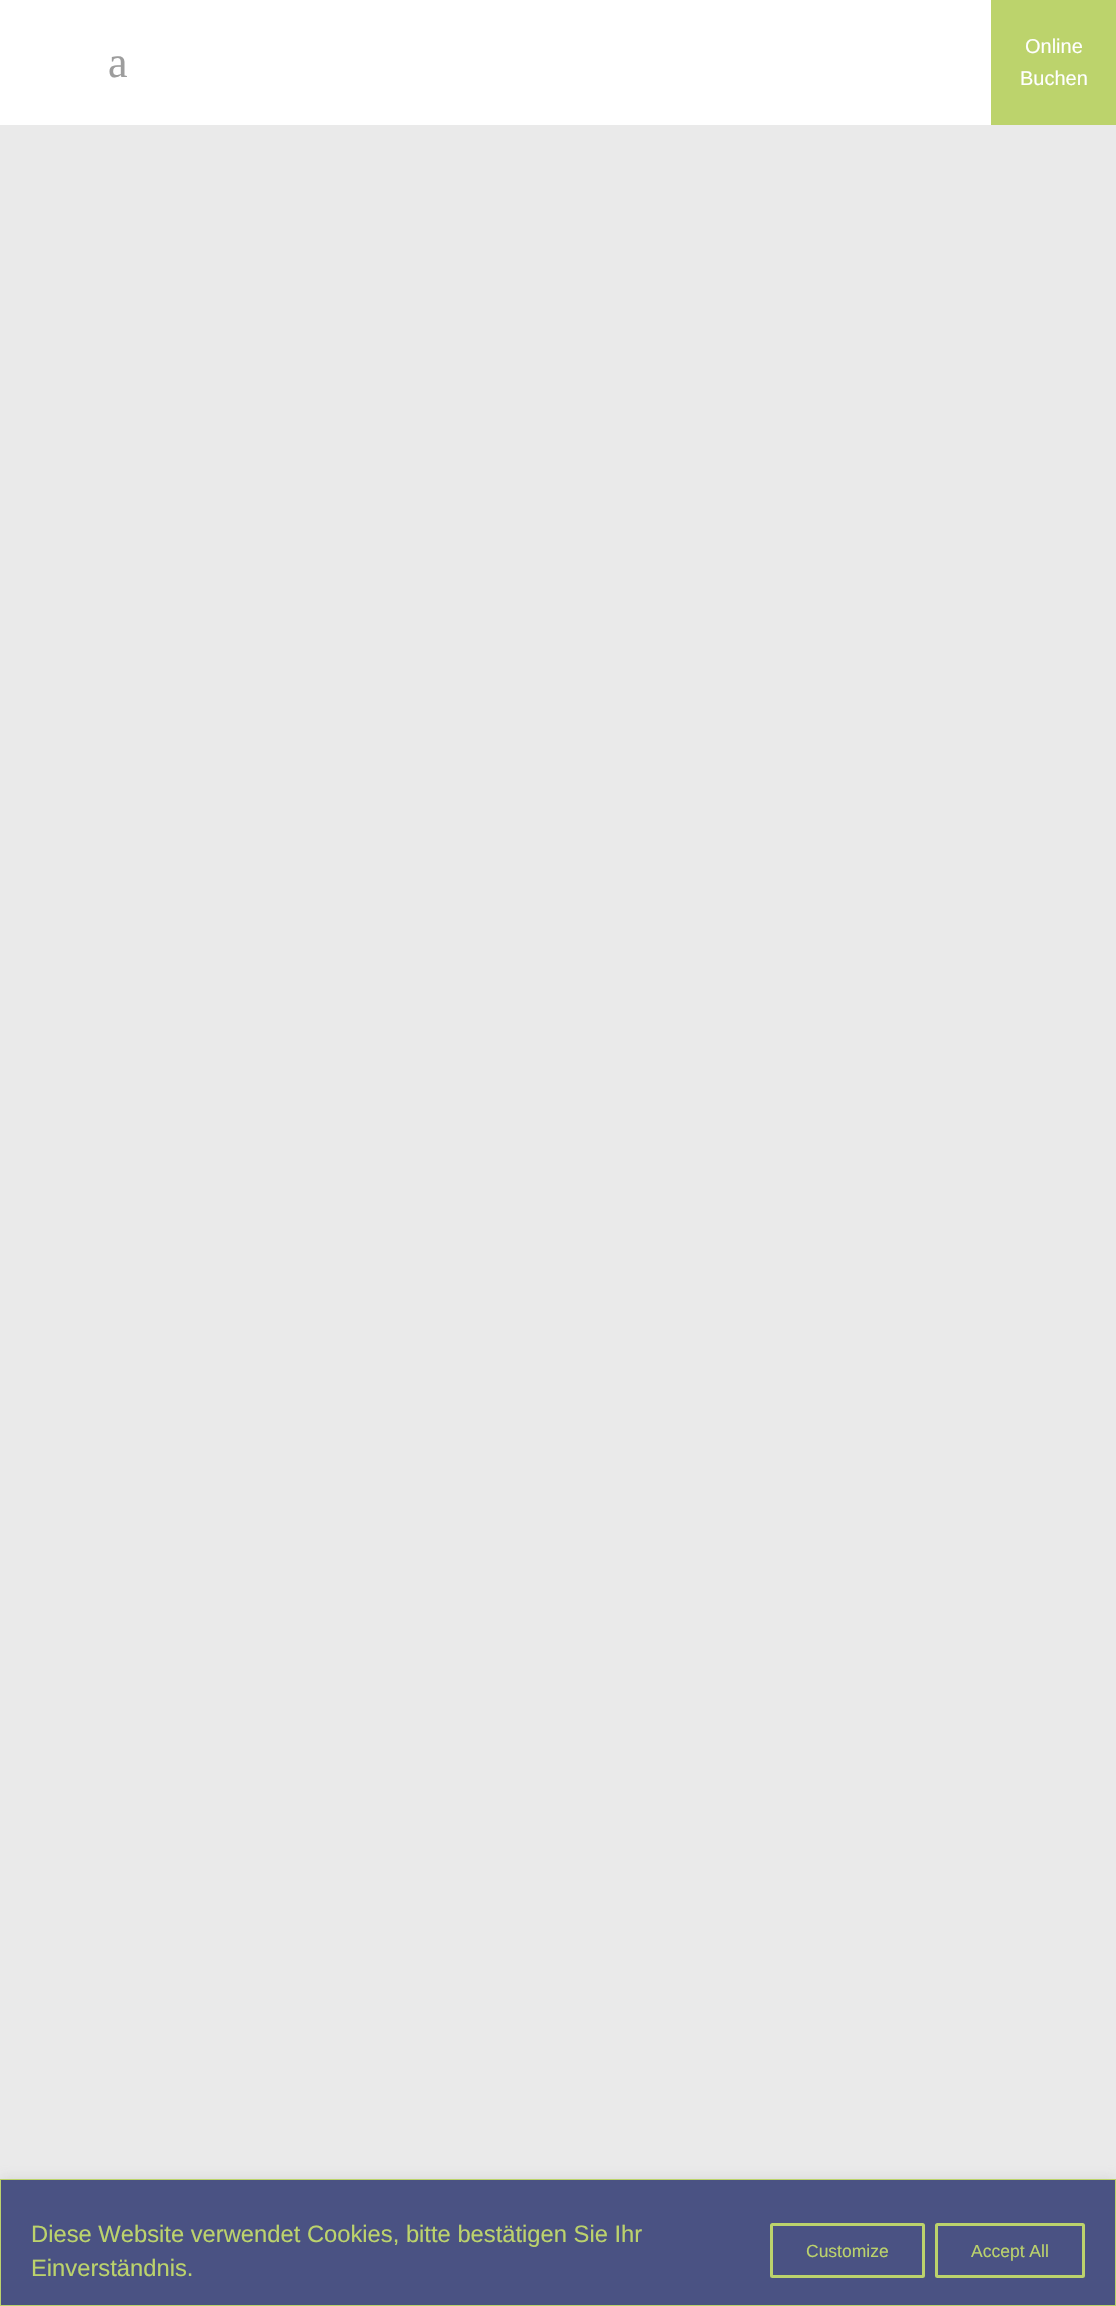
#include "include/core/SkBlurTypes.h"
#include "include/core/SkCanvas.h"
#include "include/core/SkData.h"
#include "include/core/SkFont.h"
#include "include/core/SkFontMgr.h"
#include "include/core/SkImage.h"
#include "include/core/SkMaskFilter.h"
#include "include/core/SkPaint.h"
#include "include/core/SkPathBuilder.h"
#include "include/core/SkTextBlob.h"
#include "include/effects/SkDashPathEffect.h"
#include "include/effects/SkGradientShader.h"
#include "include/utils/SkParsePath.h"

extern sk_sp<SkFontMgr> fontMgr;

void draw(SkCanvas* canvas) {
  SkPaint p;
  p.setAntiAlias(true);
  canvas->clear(SkColorSetRGB(234, 234, 234));
  p.setColor(SK_ColorWHITE);
  canvas->drawRect(SkRect::MakeLTRB(0, 0, 991, 125), p);
  p.setColor(SkColorSetRGB(188, 211, 108));
  canvas->drawRect(SkRect::MakeLTRB(991, 0, 1116, 125), p);
  p.setColor(SkColorSetARGB(77, 172, 171, 171));
  p.setMaskFilter(SkMaskFilter::MakeBlur(kNormal_SkBlurStyle, 6));
  canvas->drawRect(SkRect::MakeLTRB(0, 2178, 1116, 2305), p);
  p.setMaskFilter(nullptr);
  p.setColor(SkColorSetRGB(74, 82, 131));
  canvas->drawRect(SkRect::MakeLTRB(0.5f, 2179.5f, 1115.5f, 2305.5f), p);
  p.setStyle(SkPaint::kStroke_Style);
  p.setStrokeWidth(1);
  p.setColor(SkColorSetRGB(188, 211, 108));
  canvas->drawRect(SkRect::MakeLTRB(0.5f, 2179.5f, 1115.5f, 2305.5f), p);
  p.setStrokeWidth(3);
  canvas->drawRoundRect(SkRect::MakeLTRB(771.5f, 2224.5f, 923.5f, 2276.5f), 1, 1, p);
  canvas->drawRoundRect(SkRect::MakeLTRB(936.5f, 2224.5f, 1083.5f, 2276.5f), 1, 1, p);
  SkFont font1(fontMgr->matchFamilyStyle("Liberation Serif", SkFontStyle::Normal()), 44);
  font1.setSubpixel(true);
  p.setStyle(SkPaint::kFill_Style);
  p.setColor(SkColorSetRGB(157, 157, 157));
  canvas->drawString("a", 108, 77, font1, p);
  SkFont font2(fontMgr->matchFamilyStyle("Liberation Sans", SkFontStyle::Normal()), 20);
  font2.setSubpixel(true);
  p.setColor(SK_ColorWHITE);
  canvas->drawString("Online", 1025, 53, font2, p);
  canvas->drawString("Buchen", 1020, 85, font2, p);
  SkFont font3(fontMgr->matchFamilyStyle("Liberation Sans", SkFontStyle::Normal()), 23.75f);
  font3.setSubpixel(true);
  p.setColor(SkColorSetRGB(188, 211, 108));
  canvas->drawString("Diese Website verwendet Cookies, bitte bestätigen Sie Ihr", 31, 2242, font3, p);
  canvas->drawString("Einverständnis.", 31, 2276, font3, p);
  SkFont font4(fontMgr->matchFamilyStyle("Liberation Sans", SkFontStyle::Normal()), 17.5f);
  font4.setSubpixel(true);
  canvas->drawString("Customize", 806, 2257, font4, p);
  canvas->drawString("Accept All", 971, 2257, font4, p);
}
